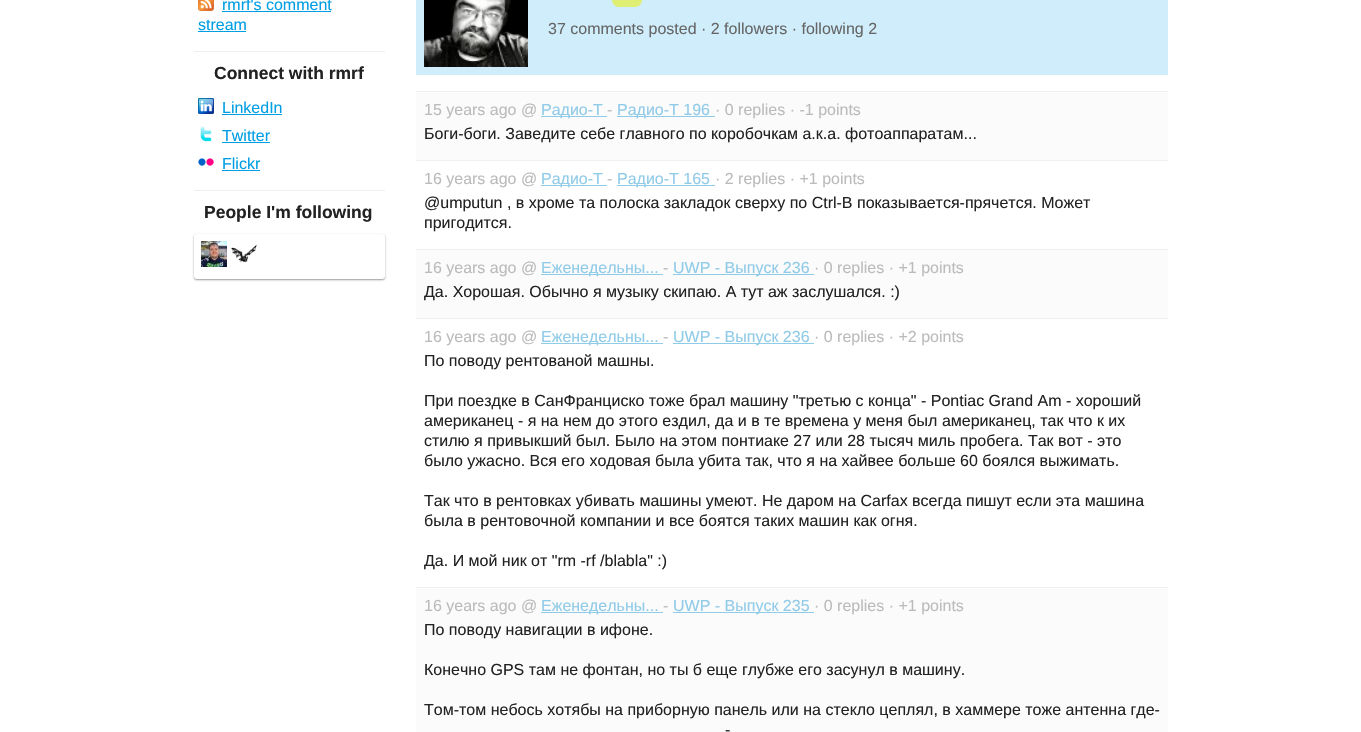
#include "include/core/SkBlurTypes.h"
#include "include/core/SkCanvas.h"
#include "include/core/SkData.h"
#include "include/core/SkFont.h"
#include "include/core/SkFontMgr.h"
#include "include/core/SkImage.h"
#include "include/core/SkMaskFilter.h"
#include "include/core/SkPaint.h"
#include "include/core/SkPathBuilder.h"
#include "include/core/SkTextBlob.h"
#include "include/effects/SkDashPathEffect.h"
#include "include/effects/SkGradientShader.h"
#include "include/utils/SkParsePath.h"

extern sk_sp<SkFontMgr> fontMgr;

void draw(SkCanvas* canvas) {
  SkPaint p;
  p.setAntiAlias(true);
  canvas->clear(SK_ColorWHITE);
  canvas->drawImageRect(SkImages::DeferredFromEncodedData(SkData::MakeFromFileName("images/1.png")), SkRect::MakeLTRB(198, 0, 214, 11), SkSamplingOptions());
  p.setColor(SkColorSetRGB(0, 158, 228));
  canvas->drawRect(SkRect::MakeLTRB(222, 11, 331, 12), p);
  canvas->drawRect(SkRect::MakeLTRB(198, 31, 246, 32), p);
  p.setColor(SkColorSetRGB(239, 239, 239));
  canvas->drawRect(SkRect::MakeLTRB(194, 51, 385, 52), p);
  canvas->drawImageRect(SkImages::DeferredFromEncodedData(SkData::MakeFromFileName("images/2.png")), SkRect::MakeLTRB(198, 98, 214, 114), SkSamplingOptions());
  p.setColor(SkColorSetRGB(0, 158, 228));
  canvas->drawRect(SkRect::MakeLTRB(222, 114, 282, 115), p);
  canvas->drawImageRect(SkImages::DeferredFromEncodedData(SkData::MakeFromFileName("images/3.png")), SkRect::MakeLTRB(200, 126, 212, 142), SkSamplingOptions());
  canvas->drawRect(SkRect::MakeLTRB(222, 142, 270, 143), p);
  canvas->drawImageRect(SkImages::DeferredFromEncodedData(SkData::MakeFromFileName("images/4.png")), SkRect::MakeLTRB(198, 158, 214, 166), SkSamplingOptions());
  canvas->drawRect(SkRect::MakeLTRB(222, 170, 260, 171), p);
  p.setColor(SkColorSetRGB(239, 239, 239));
  canvas->drawRect(SkRect::MakeLTRB(194, 190, 385, 191), p);
  p.setColor(SkColorSetRGB(153, 153, 153));
  p.setMaskFilter(SkMaskFilter::MakeBlur(kNormal_SkBlurStyle, 1));
  canvas->drawRoundRect(SkRect::MakeLTRB(194, 235, 385, 280), 3, 3, p);
  p.setMaskFilter(nullptr);
  p.setColor(SK_ColorWHITE);
  canvas->drawRoundRect(SkRect::MakeLTRB(194, 234, 385, 279), 3, 3, p);
  canvas->drawImageRect(SkImages::DeferredFromEncodedData(SkData::MakeFromFileName("images/5.png")), SkRect::MakeLTRB(201, 241, 227, 267), SkSamplingOptions());
  canvas->drawImageRect(SkImages::DeferredFromEncodedData(SkData::MakeFromFileName("images/6.png")), SkRect::MakeLTRB(231, 245, 257, 263), SkSamplingOptions());
  p.setColor(SkColorSetRGB(207, 237, 251));
  canvas->drawRect(SkRect::MakeLTRB(416, 0, 1168, 75), p);
  canvas->drawImageRect(SkImages::DeferredFromEncodedData(SkData::MakeFromFileName("images/7.png")), SkRect::MakeLTRB(424, 0, 528, 67), SkSamplingOptions());
  canvas->drawImageRect(SkImages::DeferredFromEncodedData(SkData::MakeFromFileName("images/8.png")), SkRect::MakeLTRB(612, 0, 617, 7), SkSamplingOptions());
  canvas->drawImageRect(SkImages::DeferredFromEncodedData(SkData::MakeFromFileName("images/9.png")), SkRect::MakeLTRB(617, 0, 642, 7), SkSamplingOptions());
  p.setColor(SkColorSetRGB(251, 251, 251));
  canvas->drawRect(SkRect::MakeLTRB(416, 92, 1168, 160), p);
  p.setColor(SkColorSetRGB(239, 239, 239));
  canvas->drawRect(SkRect::MakeLTRB(416, 91, 1168, 92), p);
  p.setColor(SkColorSetRGB(144, 203, 232));
  canvas->drawRect(SkRect::MakeLTRB(541, 116, 607, 117), p);
  canvas->drawRect(SkRect::MakeLTRB(617, 116, 715, 117), p);
  p.setColor(SkColorSetRGB(239, 239, 239));
  canvas->drawRect(SkRect::MakeLTRB(416, 160, 1168, 161), p);
  p.setColor(SkColorSetRGB(144, 203, 232));
  canvas->drawRect(SkRect::MakeLTRB(541, 185, 607, 186), p);
  canvas->drawRect(SkRect::MakeLTRB(617, 185, 715, 186), p);
  p.setColor(SkColorSetRGB(251, 251, 251));
  canvas->drawRect(SkRect::MakeLTRB(416, 250, 1168, 318), p);
  p.setColor(SkColorSetRGB(239, 239, 239));
  canvas->drawRect(SkRect::MakeLTRB(416, 249, 1168, 250), p);
  p.setColor(SkColorSetRGB(144, 203, 232));
  canvas->drawRect(SkRect::MakeLTRB(541, 274, 663, 275), p);
  canvas->drawRect(SkRect::MakeLTRB(673, 274, 814, 275), p);
  p.setColor(SkColorSetRGB(239, 239, 239));
  canvas->drawRect(SkRect::MakeLTRB(416, 318, 1168, 319), p);
  p.setColor(SkColorSetRGB(144, 203, 232));
  canvas->drawRect(SkRect::MakeLTRB(541, 343, 663, 344), p);
  canvas->drawRect(SkRect::MakeLTRB(673, 343, 814, 344), p);
  p.setColor(SkColorSetRGB(251, 251, 251));
  canvas->drawRect(SkRect::MakeLTRB(416, 588, 1168, 732), p);
  p.setColor(SkColorSetRGB(239, 239, 239));
  canvas->drawRect(SkRect::MakeLTRB(416, 587, 1168, 588), p);
  p.setColor(SkColorSetRGB(144, 203, 232));
  canvas->drawRect(SkRect::MakeLTRB(541, 612, 663, 613), p);
  canvas->drawRect(SkRect::MakeLTRB(673, 612, 814, 613), p);
  SkFont font1(fontMgr->matchFamilyStyle("Liberation Sans", SkFontStyle::Normal()), 16);
  font1.setSubpixel(true);
  p.setColor(SkColorSetRGB(0, 158, 228));
  canvas->drawString("rmrf's comment", 222, 10, font1, p);
  canvas->drawString("stream", 198, 30, font1, p);
  SkFont font2(fontMgr->matchFamilyStyle("Liberation Sans", SkFontStyle::Bold()), 17.5f);
  font2.setSubpixel(true);
  p.setColor(SkColorSetRGB(34, 34, 34));
  canvas->drawString("Connect with rmrf", 214, 79, font2, p);
  p.setColor(SkColorSetRGB(0, 158, 228));
  canvas->drawString("LinkedIn", 222, 113, font1, p);
  canvas->drawString("Twitter", 222, 141, font1, p);
  canvas->drawString("Flickr", 222, 169, font1, p);
  p.setColor(SkColorSetRGB(34, 34, 34));
  canvas->drawString("People I'm following", 204, 218, font2, p);
  p.setColor(SkColorSetRGB(102, 102, 102));
  canvas->drawString("37 comments posted · 2 followers · following 2", 548, 34, font1, p);
  p.setColor(SkColorSetRGB(187, 187, 187));
  canvas->drawString("15 years ago @", 424, 115, font1, p);
  p.setColor(SkColorSetRGB(144, 203, 232));
  canvas->drawString("Радио-Т", 541, 115, font1, p);
  p.setColor(SkColorSetRGB(187, 187, 187));
  canvas->drawString("-", 607, 115, font1, p);
  p.setColor(SkColorSetRGB(144, 203, 232));
  canvas->drawString("Радио-Т 196", 617, 115, font1, p);
  p.setColor(SkColorSetRGB(187, 187, 187));
  canvas->drawString("· 0 replies · -1 points", 715, 115, font1, p);
  p.setColor(SkColorSetRGB(34, 34, 34));
  canvas->drawString("Боги-боги. Заведите себе главного по коробочкам а.к.а. фотоаппаратам...", 424, 139, font1, p);
  p.setColor(SkColorSetRGB(187, 187, 187));
  canvas->drawString("16 years ago @", 424, 184, font1, p);
  p.setColor(SkColorSetRGB(144, 203, 232));
  canvas->drawString("Радио-Т", 541, 184, font1, p);
  p.setColor(SkColorSetRGB(187, 187, 187));
  canvas->drawString("-", 607, 184, font1, p);
  p.setColor(SkColorSetRGB(144, 203, 232));
  canvas->drawString("Радио-Т 165", 617, 184, font1, p);
  p.setColor(SkColorSetRGB(187, 187, 187));
  canvas->drawString("· 2 replies · +1 points", 715, 184, font1, p);
  p.setColor(SkColorSetRGB(34, 34, 34));
  canvas->drawString("@umputun , в хроме та полоска закладок сверху по Ctrl-B показывается-прячется. Может", 424, 208, font1, p);
  canvas->drawString("пригодится.", 424, 228, font1, p);
  p.setColor(SkColorSetRGB(187, 187, 187));
  canvas->drawString("16 years ago @", 424, 273, font1, p);
  p.setColor(SkColorSetRGB(144, 203, 232));
  canvas->drawString("Еженедельны...", 541, 273, font1, p);
  p.setColor(SkColorSetRGB(187, 187, 187));
  canvas->drawString("-", 663, 273, font1, p);
  p.setColor(SkColorSetRGB(144, 203, 232));
  canvas->drawString("UWP - Выпуск 236", 673, 273, font1, p);
  p.setColor(SkColorSetRGB(187, 187, 187));
  canvas->drawString("· 0 replies · +1 points", 814, 273, font1, p);
  p.setColor(SkColorSetRGB(34, 34, 34));
  canvas->drawString("Да. Хорошая. Обычно я музыку скипаю. А тут аж заслушался. :)", 424, 297, font1, p);
  p.setColor(SkColorSetRGB(187, 187, 187));
  canvas->drawString("16 years ago @", 424, 342, font1, p);
  p.setColor(SkColorSetRGB(144, 203, 232));
  canvas->drawString("Еженедельны...", 541, 342, font1, p);
  p.setColor(SkColorSetRGB(187, 187, 187));
  canvas->drawString("-", 663, 342, font1, p);
  p.setColor(SkColorSetRGB(144, 203, 232));
  canvas->drawString("UWP - Выпуск 236", 673, 342, font1, p);
  p.setColor(SkColorSetRGB(187, 187, 187));
  canvas->drawString("· 0 replies · +2 points", 814, 342, font1, p);
  p.setColor(SkColorSetRGB(34, 34, 34));
  canvas->drawString("По поводу рентованой машны.", 424, 366, font1, p);
  canvas->drawString("При поездке в СанФранциско тоже брал машину \"третью с конца\" - Pontiac Grand Am - хороший", 424, 406, font1, p);
  canvas->drawString("американец - я на нем до этого ездил, да и в те времена у меня был американец, так что к их", 424, 426, font1, p);
  canvas->drawString("стилю я привыкший был. Было на этом понтиаке 27 или 28 тысяч миль пробега. Так вот - это", 424, 446, font1, p);
  canvas->drawString("было ужасно. Вся его ходовая была убита так, что я на хайвее больше 60 боялся выжимать.", 424, 466, font1, p);
  canvas->drawString("Так что в рентовках убивать машины умеют. Не даром на Carfax всегда пишут если эта машина", 424, 506, font1, p);
  canvas->drawString("была в рентовочной компании и все боятся таких машин как огня.", 424, 526, font1, p);
  canvas->drawString("Да. И мой ник от \"rm -rf /blabla\" :)", 424, 566, font1, p);
  p.setColor(SkColorSetRGB(187, 187, 187));
  canvas->drawString("16 years ago @", 424, 611, font1, p);
  p.setColor(SkColorSetRGB(144, 203, 232));
  canvas->drawString("Еженедельны...", 541, 611, font1, p);
  p.setColor(SkColorSetRGB(187, 187, 187));
  canvas->drawString("-", 663, 611, font1, p);
  p.setColor(SkColorSetRGB(144, 203, 232));
  canvas->drawString("UWP - Выпуск 235", 673, 611, font1, p);
  p.setColor(SkColorSetRGB(187, 187, 187));
  canvas->drawString("· 0 replies · +1 points", 814, 611, font1, p);
  p.setColor(SkColorSetRGB(34, 34, 34));
  canvas->drawString("По поводу навигации в ифоне.", 424, 635, font1, p);
  canvas->drawString("Конечно GPS там не фонтан, но ты б еще глубже его засунул в машину.", 424, 675, font1, p);
  canvas->drawString("Том-том небось хотябы на приборную панель или на стекло цеплял, в хаммере тоже антенна где-", 424, 715, font1, p);
  canvas->drawString("-", 725, 735, font1, p);
}
